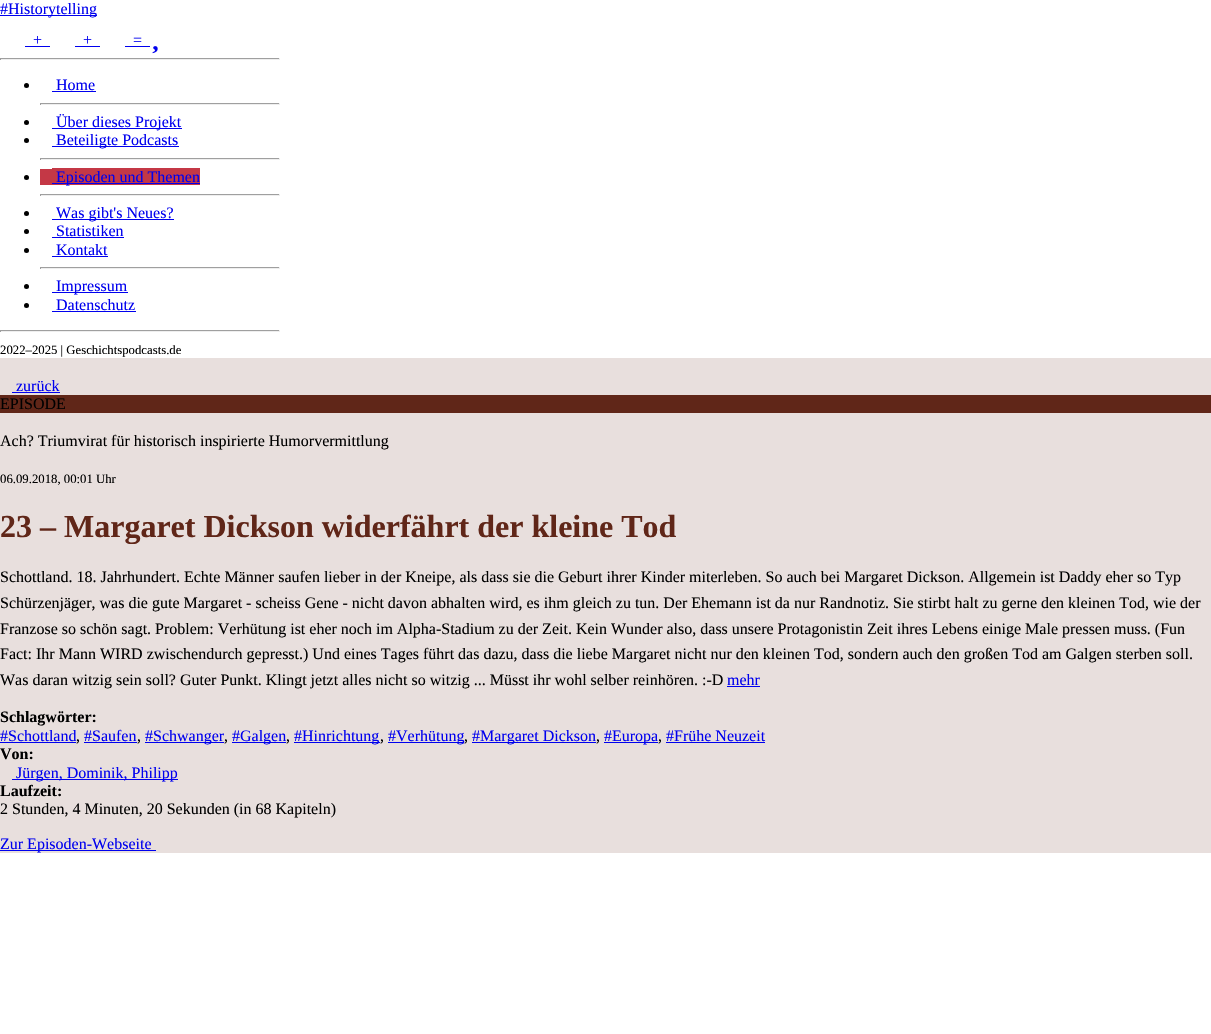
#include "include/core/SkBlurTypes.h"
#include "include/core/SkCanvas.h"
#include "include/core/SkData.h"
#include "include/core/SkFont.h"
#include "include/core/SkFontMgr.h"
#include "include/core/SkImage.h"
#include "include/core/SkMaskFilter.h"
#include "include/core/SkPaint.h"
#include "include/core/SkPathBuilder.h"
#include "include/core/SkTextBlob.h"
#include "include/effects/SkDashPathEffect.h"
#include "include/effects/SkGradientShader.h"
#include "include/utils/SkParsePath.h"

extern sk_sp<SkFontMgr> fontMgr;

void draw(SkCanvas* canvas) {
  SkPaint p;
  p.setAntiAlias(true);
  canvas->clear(SK_ColorWHITE);
  p.setColor(SkColorSetRGB(0, 0, 238));
  canvas->drawRect(SkRect::MakeLTRB(0, 15, 97, 16), p);
  canvas->drawRect(SkRect::MakeLTRB(25, 46, 50, 47), p);
  canvas->drawRect(SkRect::MakeLTRB(75, 46, 100, 47), p);
  canvas->drawRect(SkRect::MakeLTRB(125, 46, 150, 47), p);
  canvas->drawImageRect(SkImages::DeferredFromEncodedData(SkData::MakeFromFileName("images/1.png")), SkRect::MakeLTRB(152, 46, 158, 54), SkSamplingOptions());
  p.setColor(SkColorSetRGB(159, 159, 159));
  canvas->drawRect(SkRect::MakeLTRB(0, 58, 280, 59), p);
  p.setColor(SkColorSetRGB(238, 238, 238));
  canvas->drawRect(SkRect::MakeLTRB(279, 58, 280, 60), p);
  canvas->drawRect(SkRect::MakeLTRB(0, 59, 280, 60), p);
  p.setColor(SkColorSetRGB(159, 159, 159));
  canvas->drawRect(SkRect::MakeLTRB(0, 58, 1, 60), p);
  p.setColor(SK_ColorBLACK);
  canvas->drawCircle(26.5f, 85.5f, 2.5f, p);
  p.setColor(SkColorSetRGB(0, 0, 238));
  canvas->drawRect(SkRect::MakeLTRB(52, 91, 96, 92), p);
  p.setColor(SkColorSetRGB(159, 159, 159));
  canvas->drawRect(SkRect::MakeLTRB(40, 103, 280, 104), p);
  p.setColor(SkColorSetRGB(238, 238, 238));
  canvas->drawRect(SkRect::MakeLTRB(279, 103, 280, 105), p);
  canvas->drawRect(SkRect::MakeLTRB(40, 104, 280, 105), p);
  p.setColor(SkColorSetRGB(159, 159, 159));
  canvas->drawRect(SkRect::MakeLTRB(40, 103, 41, 105), p);
  p.setColor(SK_ColorBLACK);
  canvas->drawCircle(26.5f, 122.5f, 2.5f, p);
  p.setColor(SkColorSetRGB(0, 0, 238));
  canvas->drawRect(SkRect::MakeLTRB(52, 128, 182, 129), p);
  p.setColor(SK_ColorBLACK);
  canvas->drawCircle(26.5f, 140.5f, 2.5f, p);
  p.setColor(SkColorSetRGB(0, 0, 238));
  canvas->drawRect(SkRect::MakeLTRB(52, 146, 179, 147), p);
  p.setColor(SkColorSetRGB(159, 159, 159));
  canvas->drawRect(SkRect::MakeLTRB(40, 158, 280, 159), p);
  p.setColor(SkColorSetRGB(238, 238, 238));
  canvas->drawRect(SkRect::MakeLTRB(279, 158, 280, 160), p);
  canvas->drawRect(SkRect::MakeLTRB(40, 159, 280, 160), p);
  p.setColor(SkColorSetRGB(159, 159, 159));
  canvas->drawRect(SkRect::MakeLTRB(40, 158, 41, 160), p);
  p.setColor(SK_ColorBLACK);
  canvas->drawCircle(26.5f, 177.5f, 2.5f, p);
  p.setColor(SkColorSetRGB(196, 56, 70));
  canvas->drawRect(SkRect::MakeLTRB(40, 169, 52, 185), p);
  canvas->drawRect(SkRect::MakeLTRB(52, 168, 200, 185), p);
  p.setColor(SkColorSetRGB(0, 0, 238));
  canvas->drawRect(SkRect::MakeLTRB(52, 183, 200, 184), p);
  p.setColor(SkColorSetRGB(159, 159, 159));
  canvas->drawRect(SkRect::MakeLTRB(40, 194, 280, 195), p);
  p.setColor(SkColorSetRGB(238, 238, 238));
  canvas->drawRect(SkRect::MakeLTRB(279, 194, 280, 196), p);
  canvas->drawRect(SkRect::MakeLTRB(40, 195, 280, 196), p);
  p.setColor(SkColorSetRGB(159, 159, 159));
  canvas->drawRect(SkRect::MakeLTRB(40, 194, 41, 196), p);
  p.setColor(SK_ColorBLACK);
  canvas->drawCircle(26.5f, 213.5f, 2.5f, p);
  p.setColor(SkColorSetRGB(0, 0, 238));
  canvas->drawRect(SkRect::MakeLTRB(52, 219, 174, 220), p);
  p.setColor(SK_ColorBLACK);
  canvas->drawCircle(26.5f, 231.5f, 2.5f, p);
  p.setColor(SkColorSetRGB(0, 0, 238));
  canvas->drawRect(SkRect::MakeLTRB(52, 237, 124, 238), p);
  p.setColor(SK_ColorBLACK);
  canvas->drawCircle(26.5f, 250.5f, 2.5f, p);
  p.setColor(SkColorSetRGB(0, 0, 238));
  canvas->drawRect(SkRect::MakeLTRB(52, 256, 108, 257), p);
  p.setColor(SkColorSetRGB(159, 159, 159));
  canvas->drawRect(SkRect::MakeLTRB(40, 267, 280, 268), p);
  p.setColor(SkColorSetRGB(238, 238, 238));
  canvas->drawRect(SkRect::MakeLTRB(279, 267, 280, 269), p);
  canvas->drawRect(SkRect::MakeLTRB(40, 268, 280, 269), p);
  p.setColor(SkColorSetRGB(159, 159, 159));
  canvas->drawRect(SkRect::MakeLTRB(40, 267, 41, 269), p);
  p.setColor(SK_ColorBLACK);
  canvas->drawCircle(26.5f, 286.5f, 2.5f, p);
  p.setColor(SkColorSetRGB(0, 0, 238));
  canvas->drawRect(SkRect::MakeLTRB(52, 292, 128, 293), p);
  p.setColor(SK_ColorBLACK);
  canvas->drawCircle(26.5f, 305.5f, 2.5f, p);
  p.setColor(SkColorSetRGB(0, 0, 238));
  canvas->drawRect(SkRect::MakeLTRB(52, 311, 136, 312), p);
  p.setColor(SkColorSetRGB(159, 159, 159));
  canvas->drawRect(SkRect::MakeLTRB(0, 330, 280, 331), p);
  p.setColor(SkColorSetRGB(238, 238, 238));
  canvas->drawRect(SkRect::MakeLTRB(279, 330, 280, 332), p);
  canvas->drawRect(SkRect::MakeLTRB(0, 331, 280, 332), p);
  p.setColor(SkColorSetRGB(159, 159, 159));
  canvas->drawRect(SkRect::MakeLTRB(0, 330, 1, 332), p);
  p.setColor(SkColorSetRGB(232, 223, 221));
  canvas->drawRect(SkRect::MakeLTRB(0, 358, 1211, 853), p);
  p.setColor(SkColorSetRGB(0, 0, 238));
  canvas->drawRect(SkRect::MakeLTRB(12, 392, 60, 393), p);
  p.setColor(SkColorSetRGB(96, 38, 24));
  canvas->drawRect(SkRect::MakeLTRB(0, 395, 1211, 413), p);
  p.setColor(SkColorSetRGB(0, 0, 238));
  canvas->drawRect(SkRect::MakeLTRB(727, 686, 760, 687), p);
  canvas->drawRect(SkRect::MakeLTRB(0, 742, 76, 743), p);
  canvas->drawRect(SkRect::MakeLTRB(84, 742, 137, 743), p);
  canvas->drawRect(SkRect::MakeLTRB(145, 742, 224, 743), p);
  canvas->drawRect(SkRect::MakeLTRB(232, 742, 286, 743), p);
  canvas->drawRect(SkRect::MakeLTRB(294, 742, 380, 743), p);
  canvas->drawRect(SkRect::MakeLTRB(388, 742, 464, 743), p);
  canvas->drawRect(SkRect::MakeLTRB(472, 742, 596, 743), p);
  canvas->drawRect(SkRect::MakeLTRB(604, 742, 658, 743), p);
  canvas->drawRect(SkRect::MakeLTRB(666, 742, 765, 743), p);
  canvas->drawRect(SkRect::MakeLTRB(12, 779, 178, 780), p);
  canvas->drawRect(SkRect::MakeLTRB(0, 850, 156, 851), p);
  SkFont font1(fontMgr->matchFamilyStyle("Liberation Serif", SkFontStyle::Normal()), 16);
  font1.setSubpixel(true);
  canvas->drawString("#Historytelling", 0, 14, font1, p);
  canvas->drawString("+", 33, 45, font1, p);
  canvas->drawString("+", 83, 45, font1, p);
  canvas->drawString("=", 133, 45, font1, p);
  canvas->drawString("Home", 56, 90, font1, p);
  canvas->drawString("Über dieses Projekt", 56, 127, font1, p);
  canvas->drawString("Beteiligte Podcasts", 56, 145, font1, p);
  canvas->drawString("Episoden und Themen", 56, 182, font1, p);
  canvas->drawString("Was gibt's Neues?", 56, 218, font1, p);
  canvas->drawString("Statistiken", 56, 236, font1, p);
  canvas->drawString("Kontakt", 56, 255, font1, p);
  canvas->drawString("Impressum", 56, 291, font1, p);
  canvas->drawString("Datenschutz", 56, 310, font1, p);
  SkFont font2(fontMgr->matchFamilyStyle("Liberation Serif", SkFontStyle::Normal()), 12.75f);
  font2.setSubpixel(true);
  p.setColor(SK_ColorBLACK);
  canvas->drawString("2022–2025 | Geschichtspodcasts.de", 0, 354, font2, p);
  p.setColor(SkColorSetRGB(0, 0, 238));
  canvas->drawString("zurück", 16, 391, font1, p);
  p.setColor(SK_ColorBLACK);
  canvas->drawString("EPISODE", 0, 409, font1, p);
  canvas->drawString("Ach? Triumvirat für historisch inspirierte Humorvermittlung", 0, 446, font1, p);
  canvas->drawString("06.09.2018, 00:01 Uhr", 0, 483, font2, p);
  SkFont font3(fontMgr->matchFamilyStyle("Liberation Serif", SkFontStyle::Bold()), 32);
  font3.setSubpixel(true);
  p.setColor(SkColorSetRGB(96, 38, 24));
  canvas->drawString("23 – Margaret Dickson widerfährt der kleine Tod", 0, 537, font3, p);
  p.setColor(SK_ColorBLACK);
  canvas->drawString("Schottland. 18. Jahrhundert. Echte Männer saufen lieber in der Kneipe, als dass sie die Geburt ihrer Kinder miterleben. So auch bei Margaret Dickson. Allgemein ist Daddy eher so Typ", 0, 582, font1, p);
  canvas->drawString("Schürzenjäger, was die gute Margaret - scheiss Gene - nicht davon abhalten wird, es ihm gleich zu tun. Der Ehemann ist da nur Randnotiz. Sie stirbt halt zu gerne den kleinen Tod, wie der", 0, 608, font1, p);
  canvas->drawString("Franzose so schön sagt. Problem: Verhütung ist eher noch im Alpha-Stadium zu der Zeit. Kein Wunder also, dass unsere Protagonistin Zeit ihres Lebens einige Male pressen muss. (Fun", 0, 634, font1, p);
  canvas->drawString("Fact: Ihr Mann WIRD zwischendurch gepresst.) Und eines Tages führt das dazu, dass die liebe Margaret nicht nur den kleinen Tod, sondern auch den großen Tod am Galgen sterben soll.", 0, 659, font1, p);
  canvas->drawString("Was daran witzig sein soll? Guter Punkt. Klingt jetzt alles nicht so witzig ... Müsst ihr wohl selber reinhören. :-D", 0, 685, font1, p);
  p.setColor(SkColorSetRGB(0, 0, 238));
  canvas->drawString("mehr", 727, 685, font1, p);
  SkFont font4(fontMgr->matchFamilyStyle("Liberation Serif", SkFontStyle::Bold()), 16);
  font4.setSubpixel(true);
  p.setColor(SK_ColorBLACK);
  canvas->drawString("Schlagwörter:", 0, 722, font4, p);
  p.setColor(SkColorSetRGB(0, 0, 238));
  canvas->drawString("#Schottland", 0, 741, font1, p);
  p.setColor(SK_ColorBLACK);
  canvas->drawString(",", 76, 741, font1, p);
  p.setColor(SkColorSetRGB(0, 0, 238));
  canvas->drawString("#Saufen", 84, 741, font1, p);
  p.setColor(SK_ColorBLACK);
  canvas->drawString(",", 137, 741, font1, p);
  p.setColor(SkColorSetRGB(0, 0, 238));
  canvas->drawString("#Schwanger", 145, 741, font1, p);
  p.setColor(SK_ColorBLACK);
  canvas->drawString(",", 224, 741, font1, p);
  p.setColor(SkColorSetRGB(0, 0, 238));
  canvas->drawString("#Galgen", 232, 741, font1, p);
  p.setColor(SK_ColorBLACK);
  canvas->drawString(",", 286, 741, font1, p);
  p.setColor(SkColorSetRGB(0, 0, 238));
  canvas->drawString("#Hinrichtung", 294, 741, font1, p);
  p.setColor(SK_ColorBLACK);
  canvas->drawString(",", 380, 741, font1, p);
  p.setColor(SkColorSetRGB(0, 0, 238));
  canvas->drawString("#Verhütung", 388, 741, font1, p);
  p.setColor(SK_ColorBLACK);
  canvas->drawString(",", 464, 741, font1, p);
  p.setColor(SkColorSetRGB(0, 0, 238));
  canvas->drawString("#Margaret Dickson", 472, 741, font1, p);
  p.setColor(SK_ColorBLACK);
  canvas->drawString(",", 596, 741, font1, p);
  p.setColor(SkColorSetRGB(0, 0, 238));
  canvas->drawString("#Europa", 604, 741, font1, p);
  p.setColor(SK_ColorBLACK);
  canvas->drawString(",", 658, 741, font1, p);
  p.setColor(SkColorSetRGB(0, 0, 238));
  canvas->drawString("#Frühe Neuzeit", 666, 741, font1, p);
  p.setColor(SK_ColorBLACK);
  canvas->drawString("Von:", 0, 759, font4, p);
  p.setColor(SkColorSetRGB(0, 0, 238));
  canvas->drawString("Jürgen, Dominik, Philipp", 16, 778, font1, p);
  p.setColor(SK_ColorBLACK);
  canvas->drawString("Laufzeit:", 0, 796, font4, p);
  canvas->drawString("2 Stunden, 4 Minuten, 20 Sekunden (in 68 Kapiteln)", 0, 814, font1, p);
  p.setColor(SkColorSetRGB(0, 0, 238));
  canvas->drawString("Zur Episoden-Webseite", 0, 849, font1, p);
}
